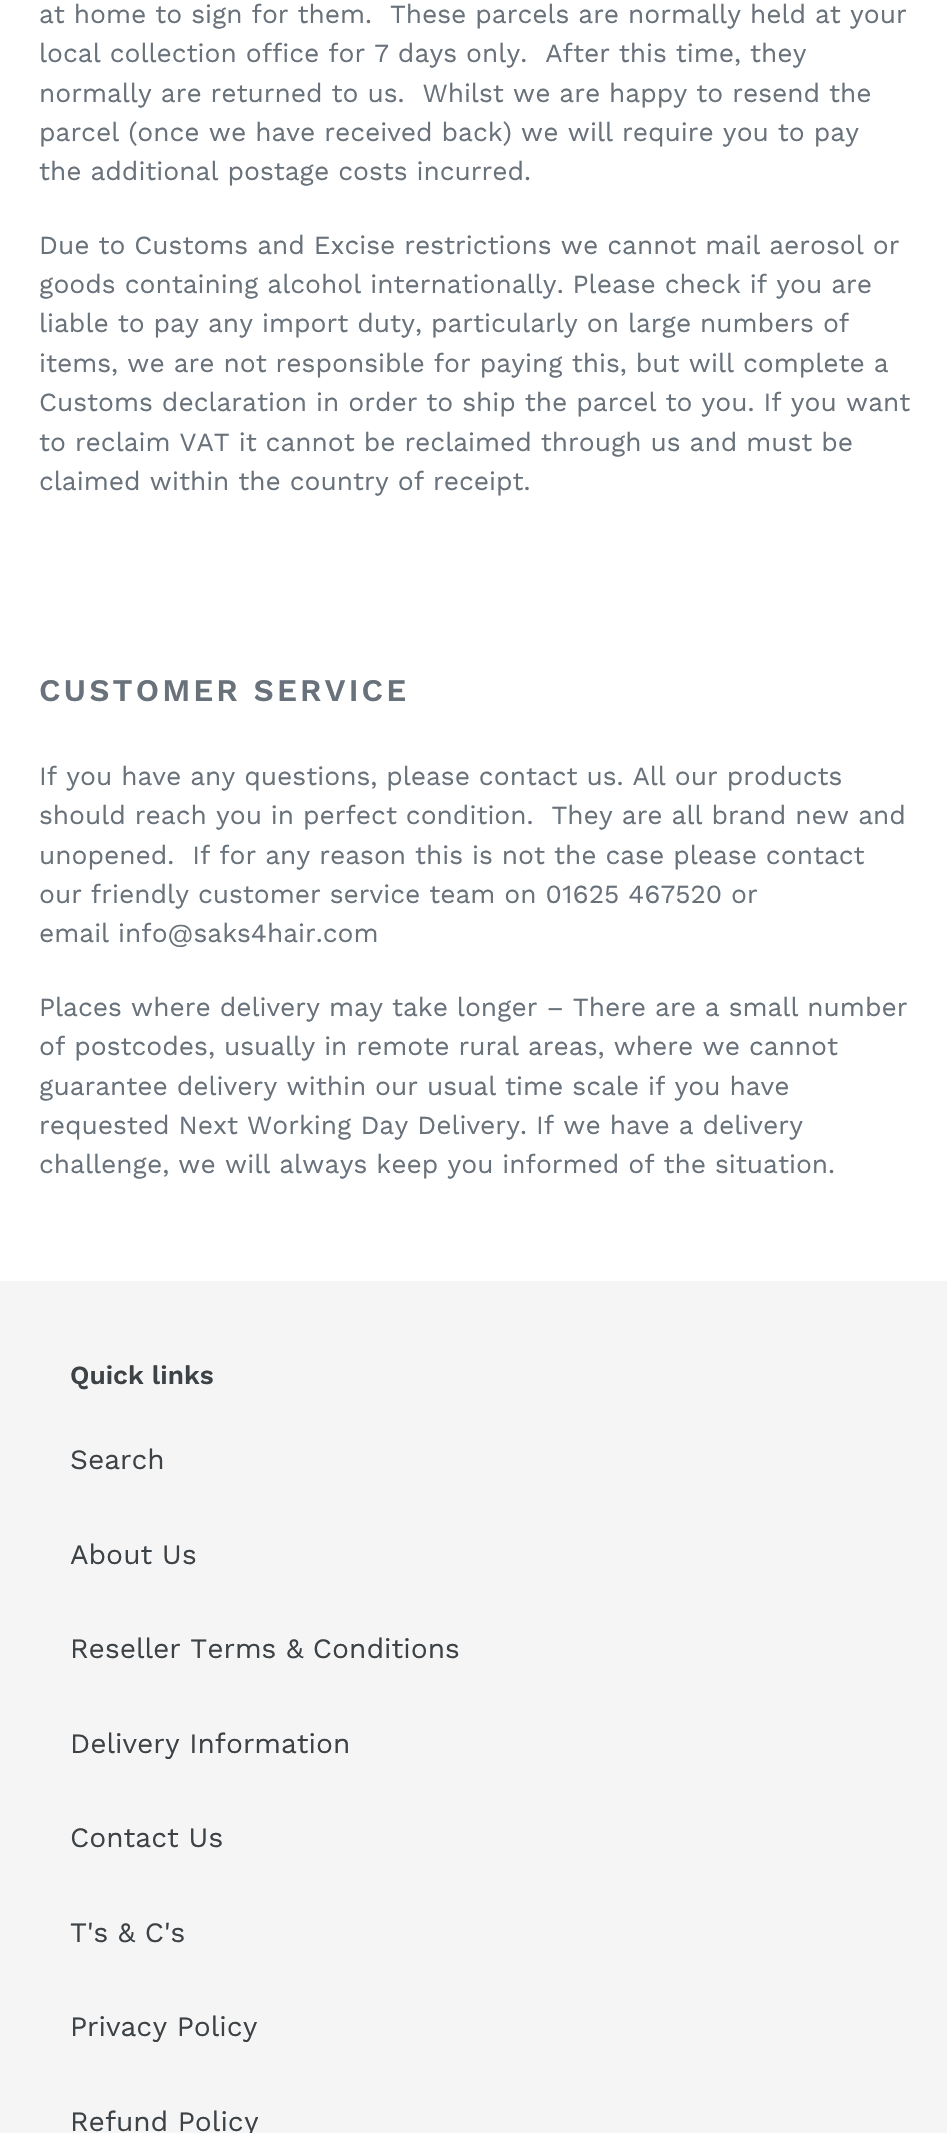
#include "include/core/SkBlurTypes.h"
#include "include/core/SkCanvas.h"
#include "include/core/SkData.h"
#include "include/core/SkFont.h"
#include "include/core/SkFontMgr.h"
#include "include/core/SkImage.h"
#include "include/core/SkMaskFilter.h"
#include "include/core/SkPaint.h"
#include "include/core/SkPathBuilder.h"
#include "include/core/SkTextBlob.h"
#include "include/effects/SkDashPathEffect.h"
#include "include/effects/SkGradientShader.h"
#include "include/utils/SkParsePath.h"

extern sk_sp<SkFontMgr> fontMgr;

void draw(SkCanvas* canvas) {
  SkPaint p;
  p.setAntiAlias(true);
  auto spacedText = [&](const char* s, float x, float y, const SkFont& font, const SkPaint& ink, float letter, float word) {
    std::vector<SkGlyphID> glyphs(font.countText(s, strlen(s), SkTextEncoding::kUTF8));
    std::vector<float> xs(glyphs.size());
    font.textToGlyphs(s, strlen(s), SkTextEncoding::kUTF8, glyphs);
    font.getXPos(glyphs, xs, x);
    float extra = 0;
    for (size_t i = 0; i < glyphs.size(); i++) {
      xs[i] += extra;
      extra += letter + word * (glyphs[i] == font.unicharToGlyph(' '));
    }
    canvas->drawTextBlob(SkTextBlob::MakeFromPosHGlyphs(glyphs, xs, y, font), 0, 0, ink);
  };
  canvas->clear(SK_ColorWHITE);
  p.setColor(SkColorSetRGB(245, 245, 245));
  canvas->drawRect(SkRect::MakeLTRB(0, 1281, 947, 2133), p);
  SkFont font1(fontMgr->matchFamilyStyle("Work Sans", SkFontStyle::Normal()), 26.25f);
  font1.setSubpixel(true);
  p.setColor(SkColorSetRGB(105, 114, 123));
  canvas->drawString("at home to sign for them.  These parcels are normally held at your", 39, 23, font1, p);
  canvas->drawString("local collection office for 7 days only.  After this time, they", 39, 62, font1, p);
  canvas->drawString("normally are returned to us.  Whilst we are happy to resend the", 39, 102, font1, p);
  canvas->drawString("parcel (once we have received back) we will require you to pay", 39, 141, font1, p);
  canvas->drawString("the additional postage costs incurred.", 39, 180, font1, p);
  canvas->drawString("Due to Customs and Excise restrictions we cannot mail aerosol or", 39, 254, font1, p);
  canvas->drawString("goods containing alcohol internationally. Please check if you are", 39, 293, font1, p);
  canvas->drawString("liable to pay any import duty, particularly on large numbers of", 39, 332, font1, p);
  canvas->drawString("items, we are not responsible for paying this, but will complete a", 39, 372, font1, p);
  canvas->drawString("Customs declaration in order to ship the parcel to you. If you want", 39, 411, font1, p);
  canvas->drawString("to reclaim VAT it cannot be reclaimed through us and must be", 39, 451, font1, p);
  canvas->drawString("claimed within the country of receipt.", 39, 490, font1, p);
  SkFont font2(fontMgr->matchFamilyStyle("Work Sans", SkFontStyle(600, SkFontStyle::kNormal_Width, SkFontStyle::kUpright_Slant)), 31.5f);
  font2.setSubpixel(true);
  spacedText("CUSTOMER SERVICE", 39, 701, font2, p, 3.1f, 0);
  canvas->drawString("If you have any questions, please contact us. All our products", 39, 785, font1, p);
  canvas->drawString("should reach you in perfect condition.  They are all brand new and", 39, 824, font1, p);
  canvas->drawString("unopened.  If for any reason this is not the case please contact", 39, 864, font1, p);
  canvas->drawString("our friendly customer service team on 01625 467520 or", 39, 903, font1, p);
  canvas->drawString("email info@saks4hair.com", 39, 942, font1, p);
  canvas->drawString("Places where delivery may take longer – There are a small number", 39, 1016, font1, p);
  canvas->drawString("of postcodes, usually in remote rural areas, where we cannot", 39, 1055, font1, p);
  canvas->drawString("guarantee delivery within our usual time scale if you have", 39, 1095, font1, p);
  canvas->drawString("requested Next Working Day Delivery. If we have a delivery", 39, 1134, font1, p);
  canvas->drawString("challenge, we will always keep you informed of the situation.", 39, 1173, font1, p);
  SkFont font3(fontMgr->matchFamilyStyle("Work Sans", SkFontStyle(600, SkFontStyle::kNormal_Width, SkFontStyle::kUpright_Slant)), 26.25f);
  font3.setSubpixel(true);
  p.setColor(SkColorSetRGB(61, 66, 70));
  canvas->drawString("Quick links", 70, 1384, font3, p);
  SkFont font4(fontMgr->matchFamilyStyle("Work Sans", SkFontStyle::Normal()), 28);
  font4.setSubpixel(true);
  canvas->drawString("Search", 70, 1469, font4, p);
  canvas->drawString("About Us", 70, 1564, font4, p);
  canvas->drawString("Reseller Terms & Conditions", 70, 1658, font4, p);
  canvas->drawString("Delivery Information", 70, 1753, font4, p);
  canvas->drawString("Contact Us", 70, 1847, font4, p);
  canvas->drawString("T's & C's", 70, 1942, font4, p);
  canvas->drawString("Privacy Policy", 70, 2036, font4, p);
  canvas->drawString("Refund Policy", 70, 2131, font4, p);
}
